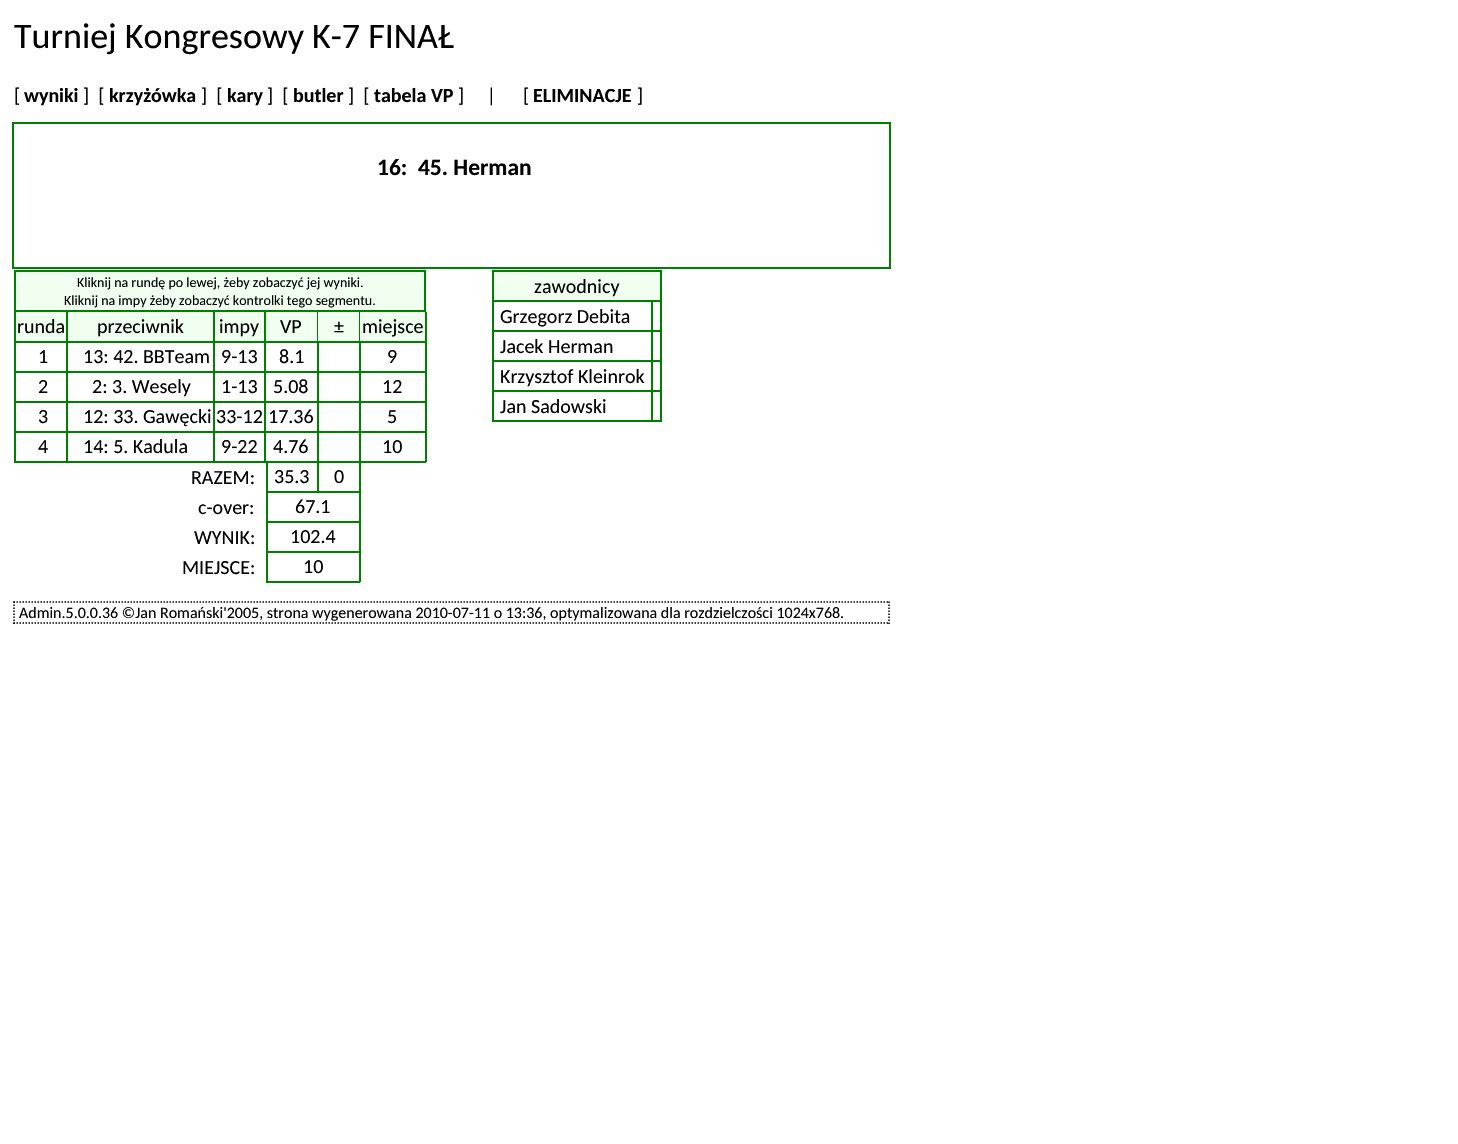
#include "include/core/SkBlurTypes.h"
#include "include/core/SkCanvas.h"
#include "include/core/SkData.h"
#include "include/core/SkFont.h"
#include "include/core/SkFontMgr.h"
#include "include/core/SkImage.h"
#include "include/core/SkMaskFilter.h"
#include "include/core/SkPaint.h"
#include "include/core/SkPathBuilder.h"
#include "include/core/SkTextBlob.h"
#include "include/effects/SkDashPathEffect.h"
#include "include/effects/SkGradientShader.h"
#include "include/utils/SkParsePath.h"

extern sk_sp<SkFontMgr> fontMgr;

void draw(SkCanvas* canvas) {
  SkPaint p;
  p.setAntiAlias(true);
  canvas->clear(SK_ColorWHITE);
  p.setStyle(SkPaint::kStroke_Style);
  p.setStrokeWidth(2);
  p.setColor(SkColorSetRGB(0, 128, 0));
  canvas->drawRect(SkRect::MakeLTRB(13, 123, 890, 268), p);
  p.setStyle(SkPaint::kFill_Style);
  p.setColor(SkColorSetRGB(240, 255, 240));
  canvas->drawRect(SkRect::MakeLTRB(15, 271, 425, 311), p);
  p.setStyle(SkPaint::kStroke_Style);
  p.setColor(SkColorSetRGB(0, 128, 0));
  canvas->drawRect(SkRect::MakeLTRB(15, 271, 425, 311), p);
  p.setStyle(SkPaint::kFill_Style);
  p.setColor(SkColorSetRGB(240, 255, 240));
  canvas->drawRect(SkRect::MakeLTRB(16, 312, 66, 341), p);
  p.setColor(SkColorSetRGB(0, 128, 0));
  canvas->drawRect(SkRect::MakeLTRB(66, 312, 68, 342), p);
  canvas->drawRect(SkRect::MakeLTRB(14, 341, 68, 343), p);
  canvas->drawRect(SkRect::MakeLTRB(14, 312, 16, 342), p);
  p.setColor(SkColorSetRGB(240, 255, 240));
  canvas->drawRect(SkRect::MakeLTRB(68, 312, 213, 341), p);
  p.setColor(SkColorSetRGB(0, 128, 0));
  canvas->drawRect(SkRect::MakeLTRB(213, 312, 215, 342), p);
  canvas->drawRect(SkRect::MakeLTRB(68, 341, 215, 343), p);
  p.setColor(SkColorSetRGB(240, 255, 240));
  canvas->drawRect(SkRect::MakeLTRB(215, 312, 264, 341), p);
  p.setColor(SkColorSetRGB(0, 128, 0));
  canvas->drawRect(SkRect::MakeLTRB(264, 312, 266, 342), p);
  canvas->drawRect(SkRect::MakeLTRB(215, 341, 266, 343), p);
  p.setColor(SkColorSetRGB(240, 255, 240));
  canvas->drawRect(SkRect::MakeLTRB(266, 312, 317, 341), p);
  p.setColor(SkColorSetRGB(0, 128, 0));
  canvas->drawRect(SkRect::MakeLTRB(317, 312, 318, 342), p);
  canvas->drawRect(SkRect::MakeLTRB(266, 341, 318, 343), p);
  p.setColor(SkColorSetRGB(240, 255, 240));
  canvas->drawRect(SkRect::MakeLTRB(318, 312, 359, 341), p);
  p.setColor(SkColorSetRGB(0, 128, 0));
  canvas->drawRect(SkRect::MakeLTRB(359, 312, 360, 342), p);
  canvas->drawRect(SkRect::MakeLTRB(318, 341, 360, 343), p);
  p.setColor(SkColorSetRGB(240, 255, 240));
  canvas->drawRect(SkRect::MakeLTRB(360, 312, 425, 341), p);
  p.setColor(SkColorSetRGB(0, 128, 0));
  canvas->drawRect(SkRect::MakeLTRB(425, 312, 427, 342), p);
  canvas->drawRect(SkRect::MakeLTRB(360, 341, 426, 343), p);
  canvas->drawRect(SkRect::MakeLTRB(66, 342, 68, 372), p);
  canvas->drawRect(SkRect::MakeLTRB(14, 371, 68, 373), p);
  canvas->drawRect(SkRect::MakeLTRB(14, 342, 16, 372), p);
  canvas->drawRect(SkRect::MakeLTRB(213, 342, 215, 372), p);
  canvas->drawRect(SkRect::MakeLTRB(68, 371, 215, 373), p);
  canvas->drawRect(SkRect::MakeLTRB(264, 342, 266, 372), p);
  canvas->drawRect(SkRect::MakeLTRB(215, 371, 266, 373), p);
  canvas->drawRect(SkRect::MakeLTRB(317, 342, 319, 372), p);
  canvas->drawRect(SkRect::MakeLTRB(266, 371, 318, 373), p);
  canvas->drawRect(SkRect::MakeLTRB(359, 342, 361, 372), p);
  canvas->drawRect(SkRect::MakeLTRB(318, 371, 360, 373), p);
  canvas->drawRect(SkRect::MakeLTRB(425, 342, 427, 372), p);
  canvas->drawRect(SkRect::MakeLTRB(360, 371, 426, 373), p);
  canvas->drawRect(SkRect::MakeLTRB(66, 372, 68, 402), p);
  canvas->drawRect(SkRect::MakeLTRB(14, 401, 68, 403), p);
  canvas->drawRect(SkRect::MakeLTRB(14, 372, 16, 402), p);
  canvas->drawRect(SkRect::MakeLTRB(213, 372, 215, 402), p);
  canvas->drawRect(SkRect::MakeLTRB(68, 401, 215, 403), p);
  canvas->drawRect(SkRect::MakeLTRB(264, 372, 266, 402), p);
  canvas->drawRect(SkRect::MakeLTRB(215, 401, 266, 403), p);
  canvas->drawRect(SkRect::MakeLTRB(317, 372, 319, 402), p);
  canvas->drawRect(SkRect::MakeLTRB(266, 401, 318, 403), p);
  canvas->drawRect(SkRect::MakeLTRB(359, 372, 361, 402), p);
  canvas->drawRect(SkRect::MakeLTRB(318, 401, 360, 403), p);
  canvas->drawRect(SkRect::MakeLTRB(425, 372, 427, 402), p);
  canvas->drawRect(SkRect::MakeLTRB(360, 401, 426, 403), p);
  canvas->drawRect(SkRect::MakeLTRB(264, 402, 266, 432), p);
  canvas->drawRect(SkRect::MakeLTRB(215, 431, 266, 433), p);
  canvas->drawRect(SkRect::MakeLTRB(359, 402, 361, 432), p);
  canvas->drawRect(SkRect::MakeLTRB(317, 402, 319, 432), p);
  canvas->drawRect(SkRect::MakeLTRB(318, 431, 360, 433), p);
  canvas->drawRect(SkRect::MakeLTRB(66, 402, 68, 432), p);
  canvas->drawRect(SkRect::MakeLTRB(14, 431, 68, 433), p);
  canvas->drawRect(SkRect::MakeLTRB(14, 402, 16, 432), p);
  canvas->drawRect(SkRect::MakeLTRB(213, 402, 215, 432), p);
  canvas->drawRect(SkRect::MakeLTRB(68, 431, 215, 433), p);
  canvas->drawRect(SkRect::MakeLTRB(266, 431, 318, 433), p);
  canvas->drawRect(SkRect::MakeLTRB(425, 402, 427, 432), p);
  canvas->drawRect(SkRect::MakeLTRB(360, 431, 426, 433), p);
  canvas->drawRect(SkRect::MakeLTRB(66, 432, 68, 462), p);
  canvas->drawRect(SkRect::MakeLTRB(14, 461, 68, 463), p);
  canvas->drawRect(SkRect::MakeLTRB(14, 432, 16, 462), p);
  canvas->drawRect(SkRect::MakeLTRB(213, 432, 215, 462), p);
  canvas->drawRect(SkRect::MakeLTRB(68, 461, 215, 463), p);
  canvas->drawRect(SkRect::MakeLTRB(264, 432, 266, 462), p);
  canvas->drawRect(SkRect::MakeLTRB(215, 461, 266, 463), p);
  canvas->drawRect(SkRect::MakeLTRB(317, 432, 319, 462), p);
  canvas->drawRect(SkRect::MakeLTRB(266, 461, 318, 463), p);
  canvas->drawRect(SkRect::MakeLTRB(359, 432, 361, 462), p);
  canvas->drawRect(SkRect::MakeLTRB(318, 461, 360, 463), p);
  canvas->drawRect(SkRect::MakeLTRB(425, 432, 427, 462), p);
  canvas->drawRect(SkRect::MakeLTRB(360, 461, 426, 463), p);
  canvas->drawRect(SkRect::MakeLTRB(317, 462, 319, 492), p);
  canvas->drawRect(SkRect::MakeLTRB(266, 491, 318, 493), p);
  canvas->drawRect(SkRect::MakeLTRB(266, 462, 268, 492), p);
  canvas->drawRect(SkRect::MakeLTRB(359, 462, 361, 492), p);
  canvas->drawRect(SkRect::MakeLTRB(318, 491, 360, 493), p);
  canvas->drawRect(SkRect::MakeLTRB(359, 492, 361, 522), p);
  canvas->drawRect(SkRect::MakeLTRB(266, 521, 360, 523), p);
  canvas->drawRect(SkRect::MakeLTRB(266, 492, 268, 522), p);
  canvas->drawRect(SkRect::MakeLTRB(359, 522, 361, 552), p);
  canvas->drawRect(SkRect::MakeLTRB(266, 551, 360, 553), p);
  canvas->drawRect(SkRect::MakeLTRB(266, 522, 268, 552), p);
  canvas->drawRect(SkRect::MakeLTRB(359, 552, 361, 582), p);
  canvas->drawRect(SkRect::MakeLTRB(266, 581, 360, 583), p);
  canvas->drawRect(SkRect::MakeLTRB(266, 552, 268, 582), p);
  p.setColor(SkColorSetRGB(240, 255, 240));
  canvas->drawRect(SkRect::MakeLTRB(493, 271, 661, 301), p);
  p.setStyle(SkPaint::kStroke_Style);
  p.setColor(SkColorSetRGB(0, 128, 0));
  canvas->drawRect(SkRect::MakeLTRB(493, 271, 661, 301), p);
  p.setStyle(SkPaint::kFill_Style);
  canvas->drawRect(SkRect::MakeLTRB(651, 302, 653, 422), p);
  canvas->drawRect(SkRect::MakeLTRB(492, 330, 653, 332), p);
  canvas->drawRect(SkRect::MakeLTRB(492, 302, 494, 332), p);
  canvas->drawRect(SkRect::MakeLTRB(660, 302, 662, 422), p);
  canvas->drawRect(SkRect::MakeLTRB(653, 330, 662, 332), p);
  canvas->drawRect(SkRect::MakeLTRB(492, 360, 662, 362), p);
  canvas->drawRect(SkRect::MakeLTRB(492, 332, 494, 362), p);
  canvas->drawRect(SkRect::MakeLTRB(492, 390, 662, 392), p);
  canvas->drawRect(SkRect::MakeLTRB(492, 362, 494, 392), p);
  canvas->drawRect(SkRect::MakeLTRB(492, 420, 662, 422), p);
  canvas->drawRect(SkRect::MakeLTRB(492, 392, 494, 422), p);
  p.setStyle(SkPaint::kStroke_Style);
  p.setStrokeWidth(1.5f);
  p.setColor(SK_ColorBLACK);
  p.setPathEffect(SkDashPathEffect::Make({{1.5f, 1.5f}}, 0));
  canvas->drawPath(SkPathBuilder().moveTo(13.5f, 602).lineTo(889.5f, 602).detach(), p);
  p.setPathEffect(nullptr);
  p.setPathEffect(SkDashPathEffect::Make({{1.5f, 1.5f}}, 0));
  canvas->drawPath(SkPathBuilder().moveTo(889, 601.5f).lineTo(889, 624).detach(), p);
  p.setPathEffect(nullptr);
  p.setPathEffect(SkDashPathEffect::Make({{1.5f, 1.5f}}, 0));
  canvas->drawPath(SkPathBuilder().moveTo(13.5f, 623).lineTo(889.5f, 623).detach(), p);
  p.setPathEffect(nullptr);
  p.setPathEffect(SkDashPathEffect::Make({{1.5f, 1.5f}}, 0));
  canvas->drawPath(SkPathBuilder().moveTo(14, 601.5f).lineTo(14, 624).detach(), p);
  p.setPathEffect(nullptr);
  SkFont font1(fontMgr->matchFamilyStyle("Carlito", SkFontStyle::Normal()), 36);
  font1.setSubpixel(true);
  p.setStyle(SkPaint::kFill_Style);
  canvas->drawString("Turniej Kongresowy K-7 FINAŁ", 14, 48, font1, p);
  SkFont font2(fontMgr->matchFamilyStyle("Carlito", SkFontStyle::Normal()), 20);
  font2.setSubpixel(true);
  canvas->drawString("[", 14, 102, font2, p);
  SkFont font3(fontMgr->matchFamilyStyle("Carlito", SkFontStyle::Bold()), 20);
  font3.setSubpixel(true);
  canvas->drawString("wyniki", 24, 102, font3, p);
  canvas->drawString("]  [", 83, 102, font2, p);
  canvas->drawString("krzyżówka", 109, 102, font3, p);
  canvas->drawString("]  [", 201, 102, font2, p);
  canvas->drawString("kary", 227, 102, font3, p);
  canvas->drawString("]  [", 267, 102, font2, p);
  canvas->drawString("butler", 293, 102, font3, p);
  canvas->drawString("]  [", 348, 102, font2, p);
  canvas->drawString("tabela VP", 374, 102, font3, p);
  canvas->drawString("]     |      [", 458, 102, font2, p);
  canvas->drawString("ELIMINACJE", 533, 102, font3, p);
  canvas->drawString("]", 637, 102, font2, p);
  SkFont font4(fontMgr->matchFamilyStyle("Carlito", SkFontStyle::Bold()), 23.5f);
  font4.setSubpixel(true);
  canvas->drawString("16:  45. Herman", 377, 175, font4, p);
  SkFont font5(fontMgr->matchFamilyStyle("Carlito", SkFontStyle::Normal()), 14);
  font5.setSubpixel(true);
  canvas->drawString("Kliknij na rundę po lewej, żeby zobaczyć jej wyniki.", 77, 287, font5, p);
  canvas->drawString("Kliknij na impy żeby zobaczyć kontrolki tego segmentu.", 64, 305, font5, p);
  canvas->drawString("runda", 17, 333, font2, p);
  canvas->drawString("przeciwnik", 97, 333, font2, p);
  canvas->drawString("impy", 219, 333, font2, p);
  canvas->drawString("VP", 280, 333, font2, p);
  canvas->drawString("±", 334, 333, font2, p);
  canvas->drawString("miejsce", 362, 333, font2, p);
  canvas->drawString("1", 38, 363, font2, p);
  canvas->drawString("13: 42. BBTeam", 83, 363, font2, p);
  canvas->drawString("9-13", 221, 363, font2, p);
  canvas->drawString("8.1", 279, 363, font2, p);
  canvas->drawString("9", 387, 363, font2, p);
  canvas->drawString("2", 38, 393, font2, p);
  canvas->drawString("2: 3. Wesely", 92, 393, font2, p);
  canvas->drawString("1-13", 221, 393, font2, p);
  canvas->drawString("5.08", 273, 393, font2, p);
  canvas->drawString("12", 382, 393, font2, p);
  canvas->drawString("3", 38, 423, font2, p);
  canvas->drawString("12: 33. Gawęcki 33-12", 83, 423, font2, p);
  canvas->drawString("17.36", 268, 423, font2, p);
  canvas->drawString("5", 387, 423, font2, p);
  canvas->drawString("4", 38, 453, font2, p);
  canvas->drawString("14: 5. Kadula", 83, 453, font2, p);
  canvas->drawString("9-22", 221, 453, font2, p);
  canvas->drawString("4.76", 273, 453, font2, p);
  canvas->drawString("10", 382, 453, font2, p);
  canvas->drawString("RAZEM:", 191, 484, font2, p);
  canvas->drawString("35.3", 274, 483, font2, p);
  canvas->drawString("0", 334, 483, font2, p);
  canvas->drawString("c-over:", 198, 514, font2, p);
  canvas->drawString("67.1", 295, 513, font2, p);
  canvas->drawString("WYNIK:", 194, 544, font2, p);
  canvas->drawString("102.4", 290, 543, font2, p);
  canvas->drawString("MIEJSCE:", 182, 574, font2, p);
  canvas->drawString("10", 303, 573, font2, p);
  canvas->drawString("zawodnicy", 534, 293, font2, p);
  canvas->drawString("Grzegorz Debita", 500, 323, font2, p);
  canvas->drawString("Jacek Herman", 500, 353, font2, p);
  canvas->drawString("Krzysztof Kleinrok", 500, 383, font2, p);
  canvas->drawString("Jan Sadowski", 500, 413, font2, p);
  SkFont font6(fontMgr->matchFamilyStyle("Carlito", SkFontStyle::Normal()), 16);
  font6.setSubpixel(true);
  canvas->drawString("Admin.5.0.0.36 ©Jan Romański'2005, strona wygenerowana 2010-07-11 o 13:36, optymalizowana dla rozdzielczości 1024x768.", 19, 618, font6, p);
}
